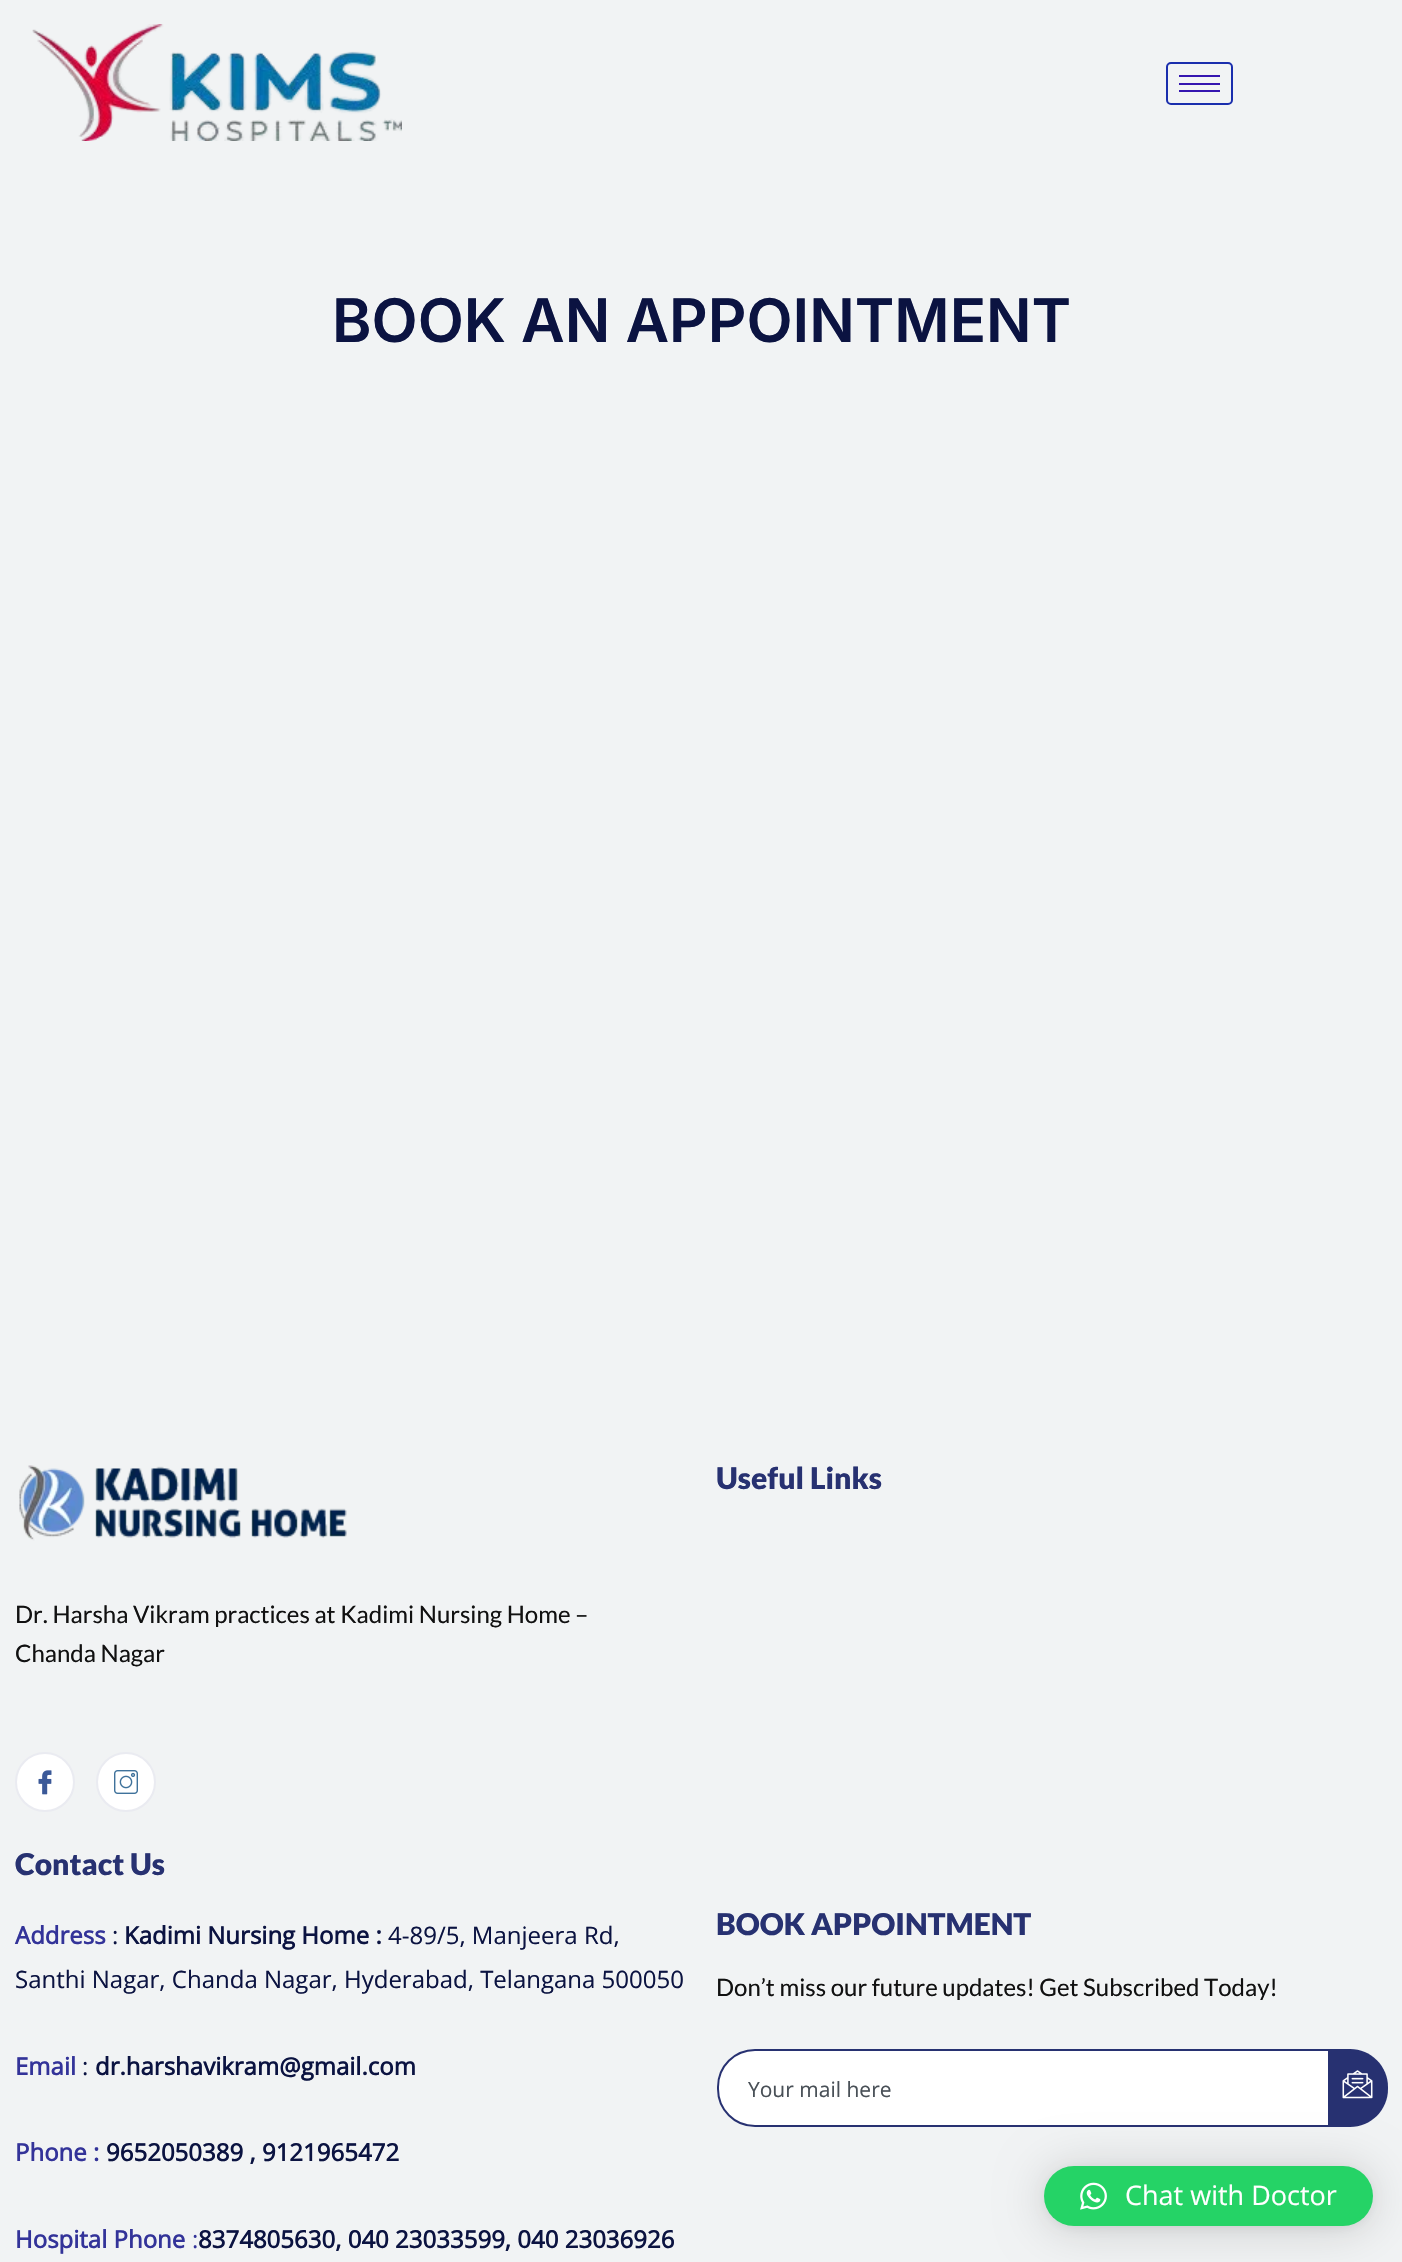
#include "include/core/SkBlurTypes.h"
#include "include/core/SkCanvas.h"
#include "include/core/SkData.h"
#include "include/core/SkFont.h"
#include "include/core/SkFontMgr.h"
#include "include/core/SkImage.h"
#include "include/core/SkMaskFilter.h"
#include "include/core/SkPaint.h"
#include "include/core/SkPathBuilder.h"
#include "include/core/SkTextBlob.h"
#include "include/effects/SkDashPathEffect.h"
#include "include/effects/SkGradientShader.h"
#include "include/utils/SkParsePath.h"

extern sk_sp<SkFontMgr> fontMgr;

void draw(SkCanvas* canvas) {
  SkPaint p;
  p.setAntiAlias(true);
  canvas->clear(SkColorSetRGB(241, 243, 244));
  canvas->drawImageRect(SkImages::DeferredFromEncodedData(SkData::MakeFromFileName("images/1.png")), SkRect::MakeLTRB(32, 24, 402, 141), SkSamplingOptions());
  p.setStyle(SkPaint::kStroke_Style);
  p.setStrokeWidth(2);
  p.setColor(SkColorSetRGB(26, 46, 173));
  canvas->drawRoundRect(SkRect::MakeLTRB(1167, 63, 1232, 104), 4, 4, p);
  p.setStyle(SkPaint::kFill_Style);
  p.setColor(SkColorSetRGB(52, 21, 176));
  canvas->drawRect(SkRect::MakeLTRB(1179, 75, 1220, 77), p);
  canvas->drawRect(SkRect::MakeLTRB(1179, 83, 1220, 85), p);
  canvas->drawRect(SkRect::MakeLTRB(1179, 90, 1220, 92), p);
  canvas->drawImageRect(SkImages::DeferredFromEncodedData(SkData::MakeFromFileName("images/2.png")), SkRect::MakeLTRB(19, 1465, 347, 1541), SkSamplingOptions());
  p.setColor(SK_ColorWHITE);
  canvas->drawCircle(45, 1782, 29, p);
  p.setStyle(SkPaint::kStroke_Style);
  p.setColor(SkColorSetRGB(234, 235, 241));
  canvas->drawCircle(45, 1782, 29, p);
  canvas->drawImageRect(SkImages::DeferredFromEncodedData(SkData::MakeFromFileName("images/3.png")), SkRect::MakeLTRB(38, 1770, 52, 1795), SkSamplingOptions());
  p.setStyle(SkPaint::kFill_Style);
  p.setColor(SK_ColorWHITE);
  canvas->drawCircle(126, 1782, 29, p);
  p.setStyle(SkPaint::kStroke_Style);
  p.setColor(SkColorSetRGB(234, 235, 241));
  canvas->drawCircle(126, 1782, 29, p);
  canvas->drawImageRect(SkImages::DeferredFromEncodedData(SkData::MakeFromFileName("images/4.png")), SkRect::MakeLTRB(114, 1770, 138, 1794), SkSamplingOptions());
  p.setStyle(SkPaint::kFill_Style);
  p.setColor(SK_ColorWHITE);
  canvas->drawPath(SkPathBuilder().moveTo(755, 2050).lineTo(1330, 2050).lineTo(1330, 2126).lineTo(755, 2126).cubicTo(734.5f, 2126, 718, 2109.5f, 718, 2089).lineTo(718, 2087).cubicTo(718, 2066.5f, 734.5f, 2050, 755, 2050).close().detach(), p);
  p.setStyle(SkPaint::kStroke_Style);
  p.setColor(SkColorSetRGB(39, 49, 113));
  canvas->drawPath(SkPathBuilder().moveTo(755, 2050).lineTo(1330, 2050).lineTo(1330, 2126).lineTo(755, 2126).cubicTo(734.5f, 2126, 718, 2109.5f, 718, 2089).lineTo(718, 2087).cubicTo(718, 2066.5f, 734.5f, 2050, 755, 2050).close().detach(), p);
  p.setStyle(SkPaint::kFill_Style);
  canvas->drawPath(SkPathBuilder().moveTo(1328, 2049).lineTo(1350, 2049).cubicTo(1371, 2049, 1388, 2066, 1388, 2087).lineTo(1388, 2089).cubicTo(1388, 2110, 1371, 2127, 1350, 2127).lineTo(1328, 2127).close().detach(), p);
  canvas->drawImageRect(SkImages::DeferredFromEncodedData(SkData::MakeFromFileName("images/5.png")), SkRect::MakeLTRB(1342, 2070, 1373, 2099), SkSamplingOptions());
  p.setColor(SkColorSetARGB(41, 0, 0, 0));
  p.setMaskFilter(SkMaskFilter::MakeBlur(kNormal_SkBlurStyle, 24));
  canvas->drawRoundRect(SkRect::MakeLTRB(1044, 2169, 1373, 2229), 30, 30, p);
  p.setMaskFilter(nullptr);
  p.setColor(SkColorSetARGB(15, 0, 0, 0));
  p.setMaskFilter(SkMaskFilter::MakeBlur(kNormal_SkBlurStyle, 4.5f));
  canvas->drawRoundRect(SkRect::MakeLTRB(1044, 2168, 1373, 2228), 30, 30, p);
  p.setMaskFilter(nullptr);
  p.setColor(SkColorSetRGB(37, 211, 102));
  canvas->drawRoundRect(SkRect::MakeLTRB(1044, 2166, 1373, 2226), 30, 30, p);
  canvas->drawImageRect(SkImages::DeferredFromEncodedData(SkData::MakeFromFileName("images/6.png")), SkRect::MakeLTRB(1080, 2182, 1107, 2210), SkSamplingOptions());
  SkFont font1(fontMgr->matchFamilyStyle("Inter", SkFontStyle(600, SkFontStyle::kNormal_Width, SkFontStyle::kUpright_Slant)), 60);
  font1.setSubpixel(true);
  p.setColor(SkColorSetRGB(11, 19, 65));
  canvas->drawString("BOOK AN APPOINTMENT", 332, 342, font1, p);
  SkFont font2(fontMgr->matchFamilyStyle("Lato", SkFontStyle(900, SkFontStyle::kNormal_Width, SkFontStyle::kUpright_Slant)), 30);
  font2.setSubpixel(true);
  p.setColor(SkColorSetRGB(39, 49, 113));
  canvas->drawString("Useful Links", 716, 1489, font2, p);
  SkFont font3(fontMgr->matchFamilyStyle("Lato", SkFontStyle::Normal()), 24);
  font3.setSubpixel(true);
  p.setColor(SkColorSetRGB(17, 17, 17));
  canvas->drawString("Dr. Harsha Vikram practices at Kadimi Nursing Home –", 15, 1623, font3, p);
  canvas->drawString("Chanda Nagar", 15, 1662, font3, p);
  p.setColor(SkColorSetRGB(39, 49, 113));
  canvas->drawString("Contact Us", 15, 1875, font2, p);
  SkFont font4(fontMgr->matchFamilyStyle("Open Sans", SkFontStyle::Bold()), 24);
  font4.setSubpixel(true);
  p.setColor(SkColorSetRGB(51, 51, 153));
  canvas->drawString("Address", 15, 1944, font4, p);
  SkFont font5(fontMgr->matchFamilyStyle("Open Sans", SkFontStyle::Normal()), 24);
  font5.setSubpixel(true);
  p.setColor(SkColorSetRGB(11, 19, 65));
  canvas->drawString(":", 112, 1944, font5, p);
  canvas->drawString("Kadimi Nursing Home :", 124, 1944, font4, p);
  canvas->drawString("4-89/5, Manjeera Rd,", 388, 1944, font5, p);
  canvas->drawString("Santhi Nagar, Chanda Nagar, Hyderabad, Telangana 500050", 15, 1988, font5, p);
  p.setColor(SkColorSetRGB(51, 51, 153));
  canvas->drawString("Email", 15, 2075, font4, p);
  p.setColor(SkColorSetRGB(11, 19, 65));
  canvas->drawString(":", 82, 2075, font5, p);
  canvas->drawString("dr.harshavikram@gmail.com", 95, 2075, font4, p);
  p.setColor(SkColorSetRGB(51, 51, 153));
  canvas->drawString("Phone :", 15, 2161, font4, p);
  p.setColor(SkColorSetRGB(11, 19, 65));
  canvas->drawString("9652050389 , 9121965472", 106, 2161, font4, p);
  p.setColor(SkColorSetRGB(51, 51, 153));
  canvas->drawString("Hospital Phone", 15, 2248, font4, p);
  canvas->drawString(":", 192, 2248, font5, p);
  p.setColor(SkColorSetRGB(11, 19, 65));
  canvas->drawString("8374805630, 040 23033599, 040 23036926", 198, 2248, font4, p);
  p.setColor(SkColorSetRGB(39, 49, 113));
  canvas->drawString("BOOK APPOINTMENT", 716, 1935, font2, p);
  p.setColor(SkColorSetRGB(17, 17, 17));
  canvas->drawString("Don’t miss our future updates! Get Subscribed Today!", 716, 1996, font3, p);
  SkFont font6(fontMgr->matchFamilyStyle("Open Sans", SkFontStyle::Normal()), 21);
  font6.setSubpixel(true);
  p.setColor(SkColorSetRGB(73, 80, 87));
  canvas->drawString("Your mail here", 748, 2097, font6, p);
  SkFont font7(fontMgr->matchFamilyStyle("Open Sans", SkFontStyle::Normal()), 27);
  font7.setSubpixel(true);
  p.setColor(SK_ColorWHITE);
  canvas->drawString("Chat with Doctor", 1125, 2205, font7, p);
}
